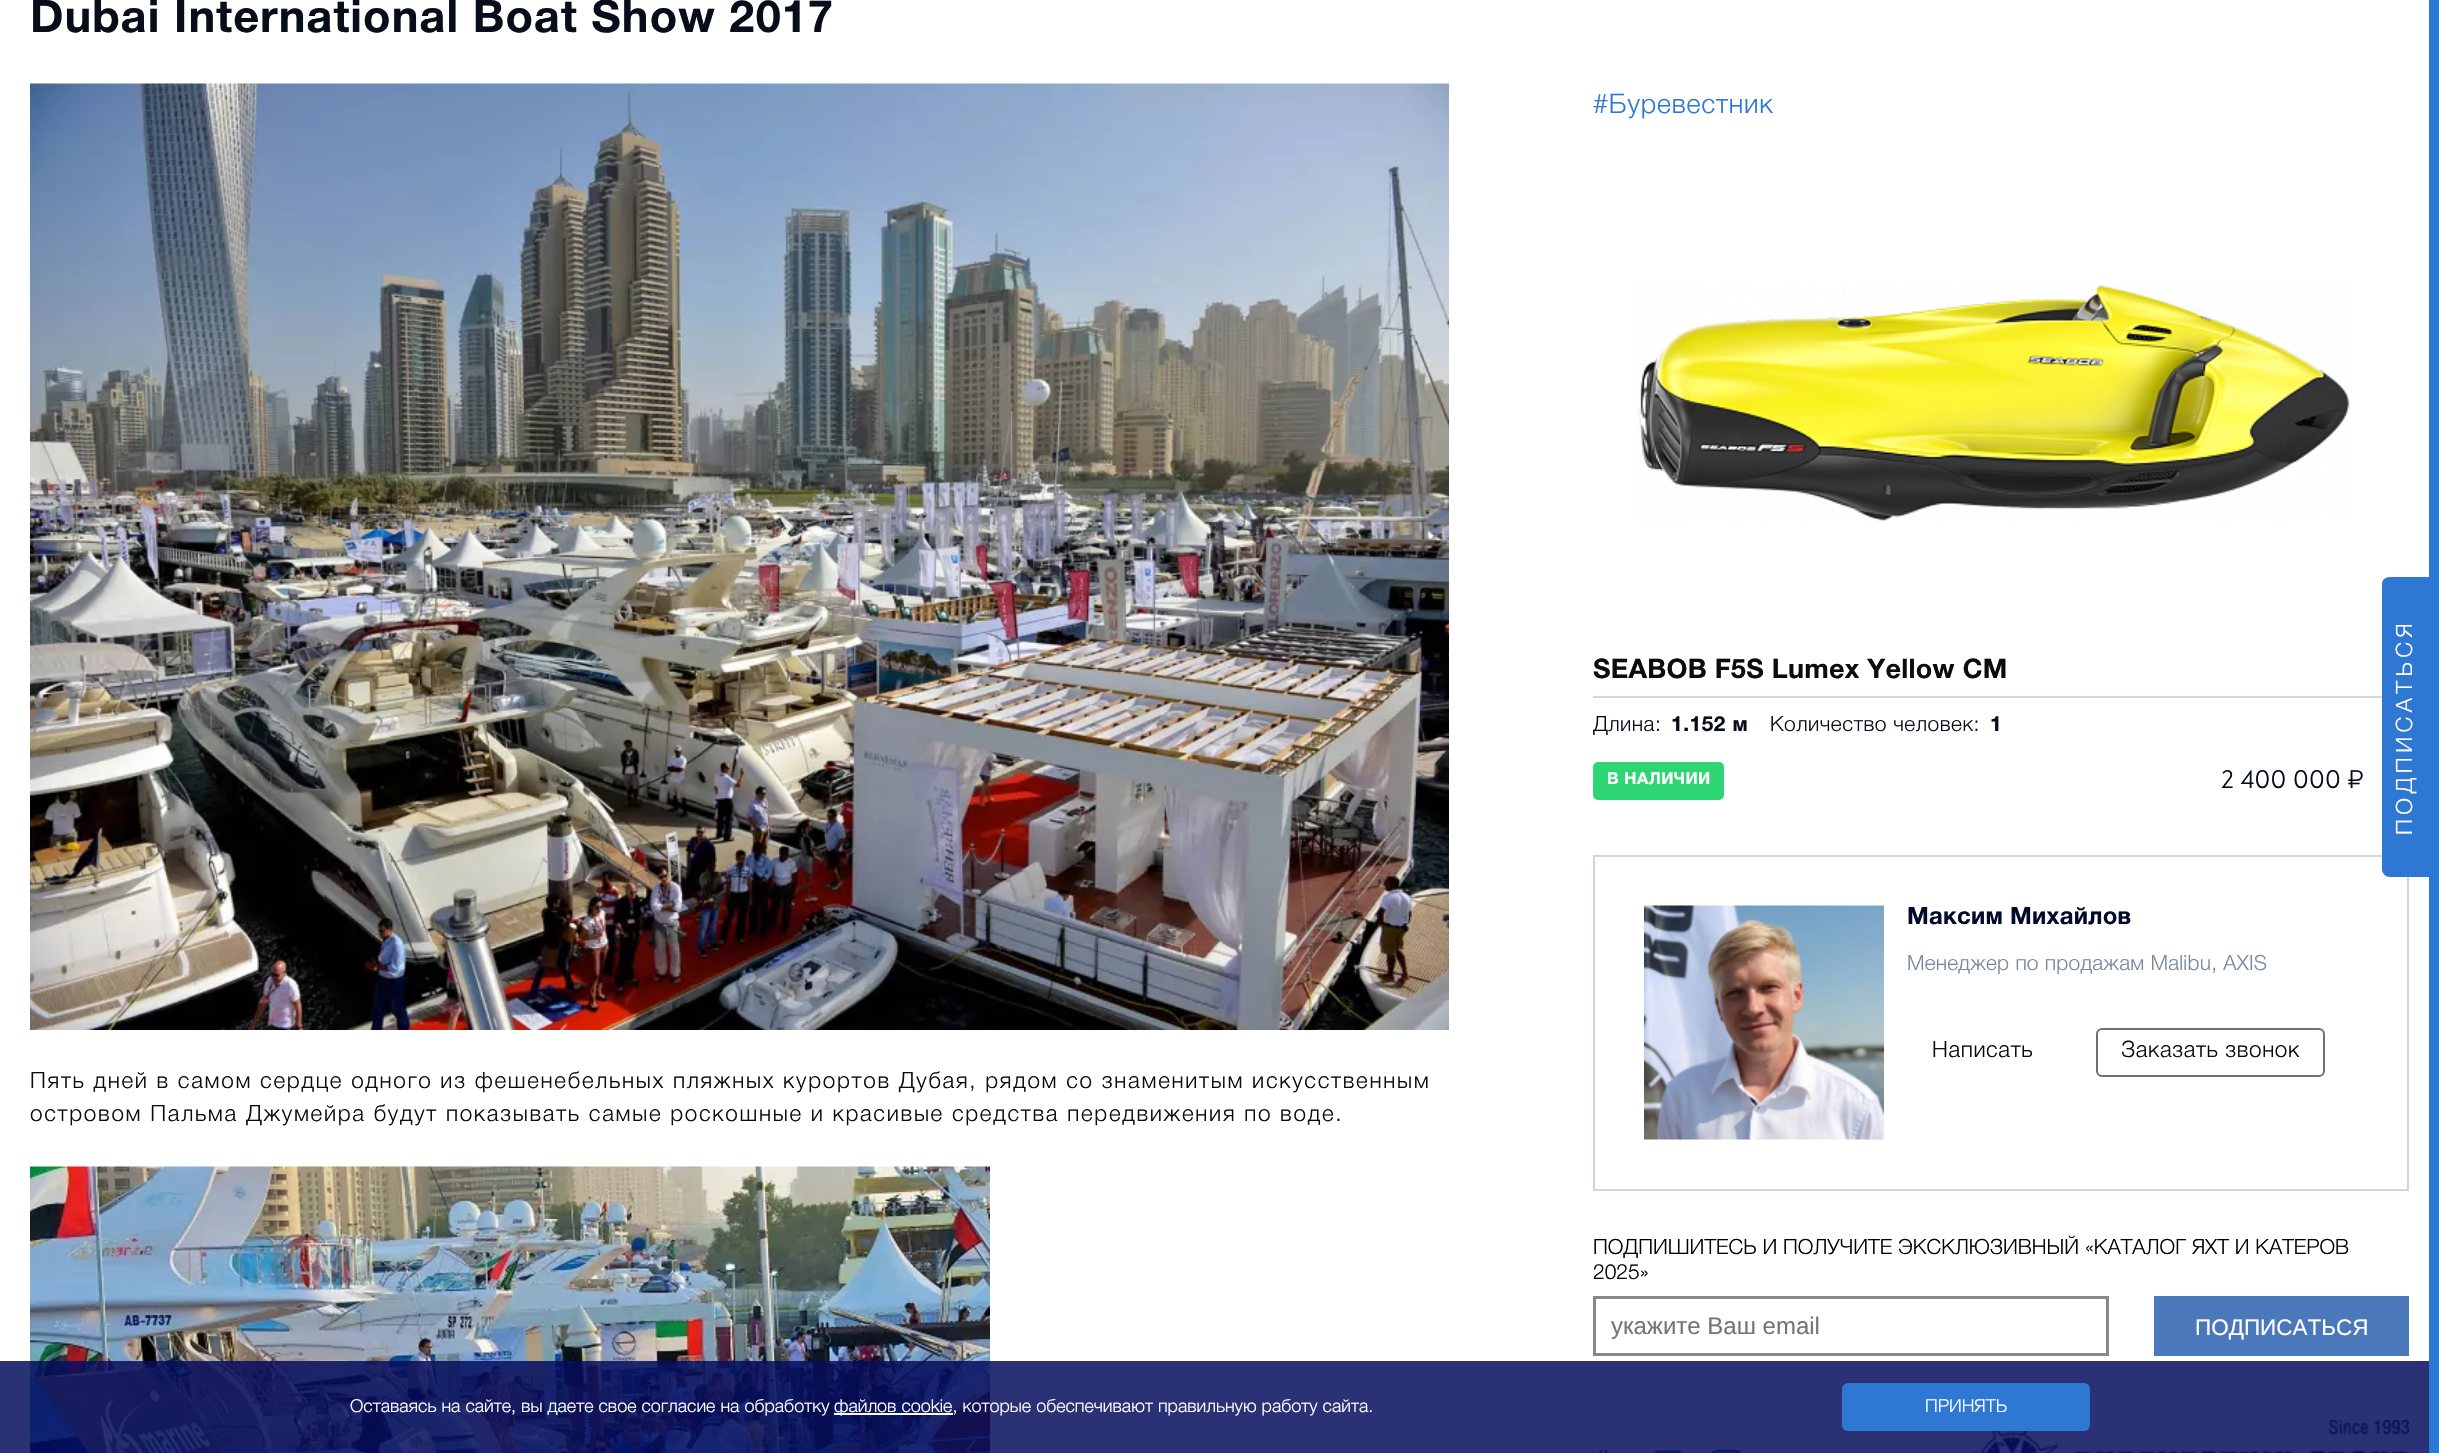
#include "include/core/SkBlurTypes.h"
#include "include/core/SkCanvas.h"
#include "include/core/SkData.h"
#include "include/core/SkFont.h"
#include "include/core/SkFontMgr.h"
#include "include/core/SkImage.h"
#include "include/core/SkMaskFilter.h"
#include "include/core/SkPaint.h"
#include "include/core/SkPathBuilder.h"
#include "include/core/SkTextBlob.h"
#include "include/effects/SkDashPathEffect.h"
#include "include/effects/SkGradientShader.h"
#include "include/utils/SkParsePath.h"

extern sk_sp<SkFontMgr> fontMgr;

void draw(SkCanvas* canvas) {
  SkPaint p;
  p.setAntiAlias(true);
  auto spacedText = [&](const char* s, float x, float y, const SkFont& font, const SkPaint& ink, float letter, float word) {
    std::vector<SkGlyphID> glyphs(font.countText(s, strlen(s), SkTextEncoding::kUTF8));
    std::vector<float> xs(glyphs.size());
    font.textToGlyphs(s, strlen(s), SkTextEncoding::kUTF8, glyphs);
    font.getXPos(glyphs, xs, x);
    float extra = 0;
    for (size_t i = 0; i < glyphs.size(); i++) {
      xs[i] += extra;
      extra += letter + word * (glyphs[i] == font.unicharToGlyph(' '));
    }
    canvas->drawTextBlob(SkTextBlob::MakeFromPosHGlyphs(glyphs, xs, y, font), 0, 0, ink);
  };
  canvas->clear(SK_ColorWHITE);
  canvas->drawImageRect(SkImages::DeferredFromEncodedData(SkData::MakeFromFileName("images/1.png")), SkRect::MakeLTRB(30, 83, 1449, 1030), SkSamplingOptions());
  canvas->drawImageRect(SkImages::DeferredFromEncodedData(SkData::MakeFromFileName("images/2.png")), SkRect::MakeLTRB(30, 1166, 990, 1453), SkSamplingOptions());
  canvas->drawImageRect(SkImages::DeferredFromEncodedData(SkData::MakeFromFileName("images/3.png")), SkRect::MakeLTRB(1638, 284, 2350, 522), SkSamplingOptions());
  p.setColor(SkColorSetRGB(207, 217, 230));
  canvas->drawRect(SkRect::MakeLTRB(1593, 696, 2382, 698), p);
  p.setColor(SkColorSetRGB(46, 213, 115));
  canvas->drawRoundRect(SkRect::MakeLTRB(1593, 762, 1724, 800), 5, 5, p);
  p.setStyle(SkPaint::kStroke_Style);
  p.setStrokeWidth(2);
  p.setColor(SkColorSetRGB(211, 213, 222));
  canvas->drawRect(SkRect::MakeLTRB(1594, 856, 2408, 1190), p);
  canvas->drawImageRect(SkImages::DeferredFromEncodedData(SkData::MakeFromFileName("images/4.png")), SkRect::MakeLTRB(1644, 905, 1884, 1140), SkSamplingOptions());
  p.setColor(SkColorSetRGB(110, 112, 115));
  canvas->drawRoundRect(SkRect::MakeLTRB(2097, 1029, 2324, 1076), 5, 5, p);
  p.setStrokeWidth(3);
  p.setColor(SkColorSetRGB(136, 136, 136));
  canvas->drawRect(SkRect::MakeLTRB(1594.5f, 1297.5f, 2107.5f, 1354.5f), p);
  p.setStyle(SkPaint::kFill_Style);
  p.setColor(SkColorSetRGB(75, 120, 187));
  canvas->drawRect(SkRect::MakeLTRB(2154, 1296, 2409, 1356), p);
  canvas->drawImageRect(SkImages::DeferredFromEncodedData(SkData::MakeFromFileName("images/5.png")), SkRect::MakeLTRB(1598, 1450, 1609, 1453), SkSamplingOptions());
  canvas->drawImageRect(SkImages::DeferredFromEncodedData(SkData::MakeFromFileName("images/6.png")), SkRect::MakeLTRB(1652, 1450, 1684, 1453), SkSamplingOptions());
  canvas->drawImageRect(SkImages::DeferredFromEncodedData(SkData::MakeFromFileName("images/7.png")), SkRect::MakeLTRB(1710, 1450, 1743, 1453), SkSamplingOptions());
  canvas->drawImageRect(SkImages::DeferredFromEncodedData(SkData::MakeFromFileName("images/8.png")), SkRect::MakeLTRB(1973, 1420, 2409, 1453), SkSamplingOptions());
  p.setColor(SkColorSetRGB(46, 120, 211));
  canvas->drawRect(SkRect::MakeLTRB(2429, 0, 2439, 1453), p);
  canvas->drawPath(SkPathBuilder().moveTo(2382, 869).lineTo(2382, 584).cubicTo(2382, 580, 2385, 577, 2390, 577).lineTo(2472, 577).lineTo(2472, 877).lineTo(2390, 877).cubicTo(2385, 877, 2382, 873, 2382, 869).close().detach(), p);
  p.setColor(SkColorSetARGB(217, 5, 13, 93));
  canvas->drawRect(SkRect::MakeLTRB(0, 1361, 2429, 1453), p);
  p.setColor(SK_ColorWHITE);
  canvas->drawRect(SkRect::MakeLTRB(834, 1413, 953, 1415), p);
  p.setColor(SkColorSetRGB(46, 120, 211));
  canvas->drawRoundRect(SkRect::MakeLTRB(1842, 1383, 2090, 1431), 6, 6, p);
  SkFont font1(fontMgr->matchFamilyStyle("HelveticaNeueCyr", SkFontStyle::Bold()), 45);
  font1.setSubpixel(true);
  p.setColor(SkColorSetRGB(7, 14, 26));
  spacedText("Dubai International Boat Show 2017", 30, 32, font1, p, 1.1f, 0);
  SkFont font2(fontMgr->matchFamilyStyle("HelveticaNeueCyr", SkFontStyle(300, SkFontStyle::kNormal_Width, SkFontStyle::kUpright_Slant)), 22.5f);
  font2.setSubpixel(true);
  p.setColor(SkColorSetRGB(11, 12, 16));
  spacedText("Пять дней в самом сердце одного из фешенебельных пляжных курортов Дубая, рядом со знаменитым искусственным", 30, 1088, font2, p, 1.69f, 0);
  spacedText("островом Пальма Джумейра будут показывать самые роскошные и красивые средства передвижения по воде.", 30, 1121, font2, p, 1.69f, 0);
  SkFont font3(fontMgr->matchFamilyStyle("HelveticaNeueCyr", SkFontStyle(300, SkFontStyle::kNormal_Width, SkFontStyle::kUpright_Slant)), 27);
  font3.setSubpixel(true);
  p.setColor(SkColorSetRGB(46, 120, 211));
  spacedText("#Буревестник", 1593, 113, font3, p, 0.75f, 0);
  SkFont font4(fontMgr->matchFamilyStyle("HelveticaNeueCyr", SkFontStyle::Bold()), 27);
  font4.setSubpixel(true);
  p.setColor(SkColorSetRGB(11, 12, 16));
  spacedText("SEABOB F5S Lumex Yellow CM", 1593, 678, font4, p, 0.25f, 0);
  SkFont font5(fontMgr->matchFamilyStyle("HelveticaNeueCyr", SkFontStyle(300, SkFontStyle::kNormal_Width, SkFontStyle::kUpright_Slant)), 21);
  font5.setSubpixel(true);
  p.setColor(SkColorSetRGB(7, 14, 26));
  spacedText("Длина:", 1593, 731, font5, p, 0.5f, 0);
  SkFont font6(fontMgr->matchFamilyStyle("HelveticaNeueCyr", SkFontStyle::Bold()), 21);
  font6.setSubpixel(true);
  spacedText("1.152 м", 1671, 731, font6, p, 0.5f, 0);
  spacedText("Количество человек:", 1770, 731, font5, p, 0.5f, 0);
  spacedText("1", 1990, 731, font6, p, 0.5f, 0);
  SkFont font7(fontMgr->matchFamilyStyle("HelveticaNeueCyr", SkFontStyle::Bold()), 16.5f);
  font7.setSubpixel(true);
  p.setColor(SK_ColorWHITE);
  spacedText("В НАЛИЧИИ", 1607, 784, font7, p, 0.5f, 0);
  SkFont font8(fontMgr->matchFamilyStyle("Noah", SkFontStyle::Normal()), 27);
  font8.setSubpixel(true);
  p.setColor(SkColorSetRGB(7, 14, 26));
  spacedText("2 400 000 ₽", 2221, 788, font8, p, 0.25f, 0);
  SkFont font9(fontMgr->matchFamilyStyle("HelveticaNeueCyr", SkFontStyle::Bold()), 24);
  font9.setSubpixel(true);
  p.setColor(SkColorSetRGB(0, 10, 41));
  spacedText("Максим Михайлов", 1907, 924, font9, p, 0.25f, 0);
  p.setColor(SkColorSetRGB(120, 137, 158));
  spacedText("Менеджер по продажам Malibu, AXIS", 1907, 970, font5, p, 0.2f, 0);
  p.setColor(SkColorSetRGB(11, 12, 16));
  spacedText("Написать", 1932, 1057, font2, p, 0.6f, 0);
  spacedText("Заказать звонок", 2121, 1057, font2, p, 0.6f, 0);
  p.setColor(SK_ColorBLACK);
  canvas->drawString("ПОДПИШИТЕСЬ И ПОЛУЧИТЕ ЭКСКЛЮЗИВНЫЙ «КАТАЛОГ ЯХТ И КАТЕРОВ", 1593, 1254, font5, p);
  canvas->drawString("2025»", 1593, 1279, font5, p);
  SkFont font10(fontMgr->matchFamilyStyle("Liberation Sans", SkFontStyle::Normal()), 24);
  font10.setSubpixel(true);
  p.setColor(SkColorSetRGB(117, 117, 117));
  canvas->drawString("укажите Ваш email", 1611, 1334, font10, p);
  SkFont font11(fontMgr->matchFamilyStyle("Liberation Sans", SkFontStyle::Normal()), 22.5f);
  font11.setSubpixel(true);
  p.setColor(SK_ColorWHITE);
  canvas->drawString("ПОДПИСАТЬСЯ", 2195, 1335, font11, p);
  canvas->save();
  canvas->rotate(-90, 2412, 835);
  spacedText("ПОДПИСАТЬСЯ", 2412, 835, font2, p, 4.5f, 0);
  canvas->restore();
  SkFont font12(fontMgr->matchFamilyStyle("HelveticaNeueCyr", SkFontStyle(300, SkFontStyle::kNormal_Width, SkFontStyle::kUpright_Slant)), 18);
  font12.setSubpixel(true);
  canvas->drawString("Оставаясь на сайте, вы даете свое согласие на обработку", 350, 1412, font12, p);
  canvas->drawString("файлов cookie, которые обеспечивают правильную работу сайта.", 834, 1412, font12, p);
  canvas->drawString("ПРИНЯТЬ", 1925, 1412, font12, p);
}
